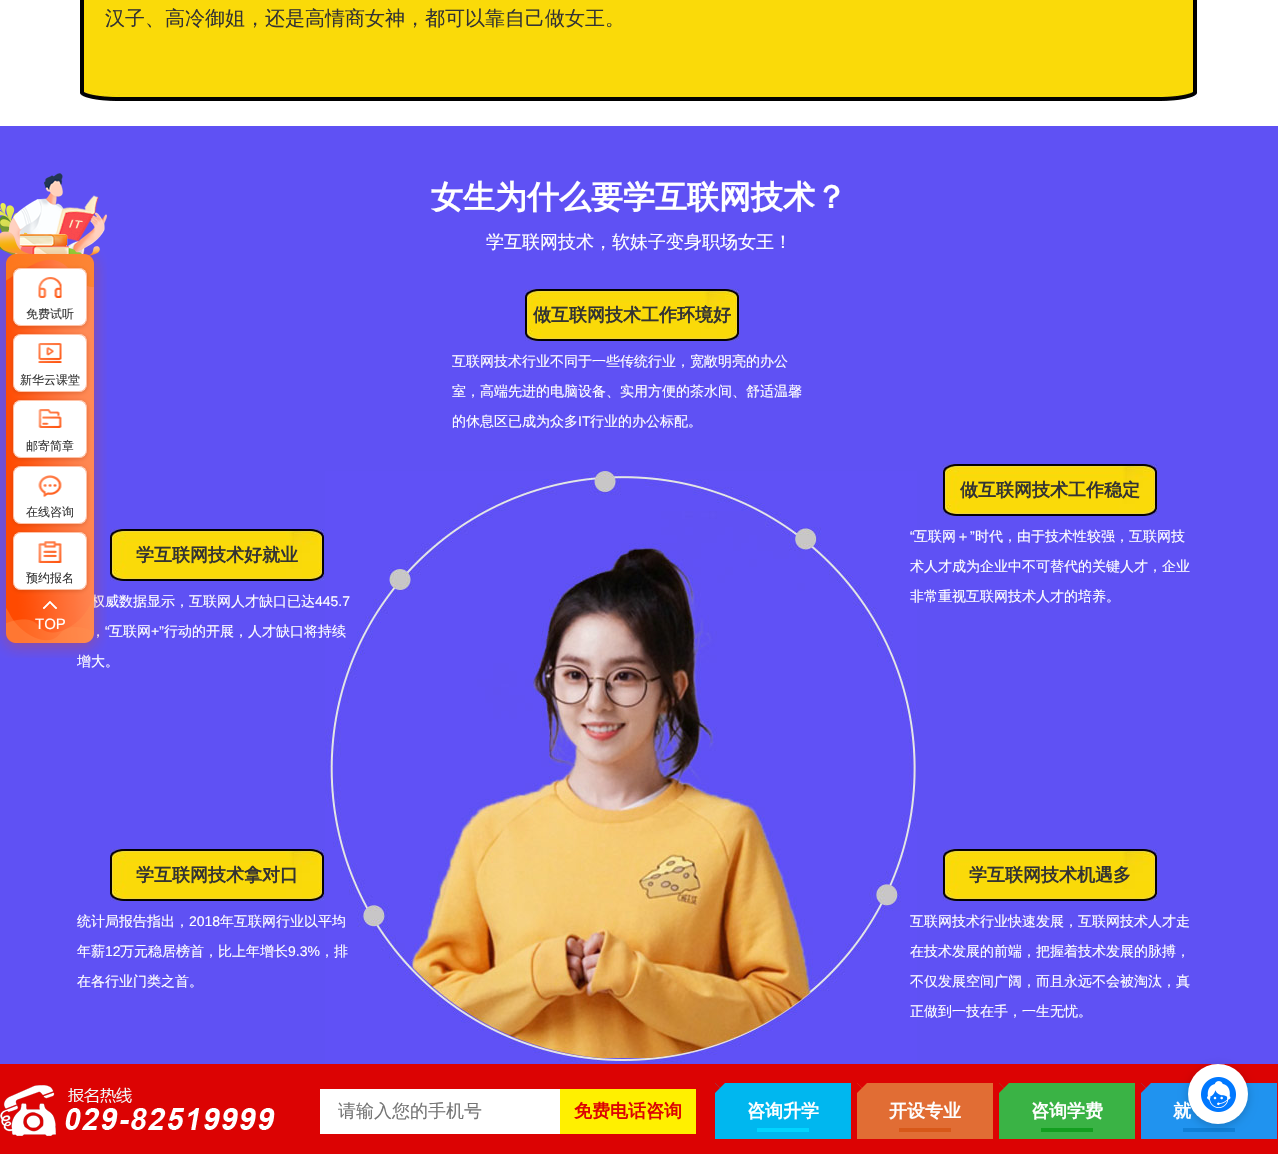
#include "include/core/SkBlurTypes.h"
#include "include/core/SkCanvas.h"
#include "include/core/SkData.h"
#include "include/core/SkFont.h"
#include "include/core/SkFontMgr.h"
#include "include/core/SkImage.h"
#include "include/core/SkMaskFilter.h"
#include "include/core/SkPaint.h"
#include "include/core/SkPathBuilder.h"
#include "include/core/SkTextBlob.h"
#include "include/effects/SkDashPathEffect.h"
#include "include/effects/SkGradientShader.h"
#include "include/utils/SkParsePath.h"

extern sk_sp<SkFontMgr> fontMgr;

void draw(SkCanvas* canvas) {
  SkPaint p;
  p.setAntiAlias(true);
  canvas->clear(SK_ColorWHITE);
  canvas->drawImageRect(SkImages::DeferredFromEncodedData(SkData::MakeFromFileName("images/1.png")), SkRect::MakeLTRB(80, 0, 1198, 101), SkSamplingOptions());
  p.setColor(SkColorSetRGB(95, 81, 244));
  canvas->drawRect(SkRect::MakeLTRB(0, 126, 1278, 1064), p);
  canvas->drawImageRect(SkImages::DeferredFromEncodedData(SkData::MakeFromFileName("images/8.png")), SkRect::MakeLTRB(325, 471, 917, 1063), SkSamplingOptions());
  canvas->drawImageRect(SkImages::DeferredFromEncodedData(SkData::MakeFromFileName("images/9.png")), SkRect::MakeLTRB(525, 289, 739, 341), SkSamplingOptions());
  canvas->drawImageRect(SkImages::DeferredFromEncodedData(SkData::MakeFromFileName("images/9.png")), SkRect::MakeLTRB(110, 529, 324, 581), SkSamplingOptions());
  canvas->drawImageRect(SkImages::DeferredFromEncodedData(SkData::MakeFromFileName("images/9.png")), SkRect::MakeLTRB(943, 464, 1157, 516), SkSamplingOptions());
  canvas->drawImageRect(SkImages::DeferredFromEncodedData(SkData::MakeFromFileName("images/9.png")), SkRect::MakeLTRB(110, 849, 324, 901), SkSamplingOptions());
  canvas->drawImageRect(SkImages::DeferredFromEncodedData(SkData::MakeFromFileName("images/9.png")), SkRect::MakeLTRB(943, 849, 1157, 901), SkSamplingOptions());
  p.setColor(SkColorSetRGB(220, 3, 3));
  canvas->drawRect(SkRect::MakeLTRB(0, 1064, 1278, 1154), p);
  canvas->drawImageRect(SkImages::DeferredFromEncodedData(SkData::MakeFromFileName("images/10.png")), SkRect::MakeLTRB(0, 1085, 275, 1136), SkSamplingOptions());
  p.setColor(SK_ColorWHITE);
  canvas->drawRect(SkRect::MakeLTRB(320, 1089, 560, 1134), p);
  p.setColor(SkColorSetRGB(255, 240, 0));
  canvas->drawRect(SkRect::MakeLTRB(560, 1089, 696, 1134), p);
  p.setColor(SkColorSetRGB(0, 183, 239));
  canvas->drawRect(SkRect::MakeLTRB(715, 1083, 851, 1139), p);
  p.setColor(SkColorSetRGB(220, 3, 3));
  canvas->drawPath(SkPathBuilder().moveTo(715, 1083).lineTo(725, 1083).lineTo(720, 1088).close().detach(), p);
  canvas->drawPath(SkPathBuilder().moveTo(715, 1093).lineTo(715, 1083).lineTo(720, 1088).close().detach(), p);
  p.setColor(SkColorSetRGB(0, 213, 255));
  canvas->drawRect(SkRect::MakeLTRB(757, 1128, 809, 1132), p);
  p.setColor(SkColorSetRGB(225, 109, 52));
  canvas->drawRect(SkRect::MakeLTRB(857, 1083, 993, 1139), p);
  p.setColor(SkColorSetRGB(220, 3, 3));
  canvas->drawPath(SkPathBuilder().moveTo(857, 1083).lineTo(867, 1083).lineTo(862, 1088).close().detach(), p);
  canvas->drawPath(SkPathBuilder().moveTo(857, 1093).lineTo(857, 1083).lineTo(862, 1088).close().detach(), p);
  p.setColor(SkColorSetRGB(215, 88, 25));
  canvas->drawRect(SkRect::MakeLTRB(899, 1128, 951, 1132), p);
  p.setColor(SkColorSetRGB(58, 179, 69));
  canvas->drawRect(SkRect::MakeLTRB(999, 1083, 1135, 1139), p);
  p.setColor(SkColorSetRGB(220, 3, 3));
  canvas->drawPath(SkPathBuilder().moveTo(999, 1083).lineTo(1009, 1083).lineTo(1004, 1088).close().detach(), p);
  canvas->drawPath(SkPathBuilder().moveTo(999, 1093).lineTo(999, 1083).lineTo(1004, 1088).close().detach(), p);
  p.setColor(SkColorSetRGB(19, 159, 32));
  canvas->drawRect(SkRect::MakeLTRB(1041, 1128, 1093, 1132), p);
  p.setColor(SkColorSetRGB(32, 147, 239));
  canvas->drawRect(SkRect::MakeLTRB(1141, 1083, 1277, 1139), p);
  p.setColor(SkColorSetRGB(220, 3, 3));
  canvas->drawPath(SkPathBuilder().moveTo(1141, 1083).lineTo(1151, 1083).lineTo(1146, 1088).close().detach(), p);
  canvas->drawPath(SkPathBuilder().moveTo(1141, 1093).lineTo(1141, 1083).lineTo(1146, 1088).close().detach(), p);
  p.setColor(SkColorSetRGB(17, 128, 216));
  canvas->drawRect(SkRect::MakeLTRB(1183, 1128, 1235, 1132), p);
  p.setColor(SkColorSetARGB(51, 0, 0, 0));
  p.setMaskFilter(SkMaskFilter::MakeBlur(kNormal_SkBlurStyle, 5));
  canvas->drawRoundRect(SkRect::MakeLTRB(1188, 1066, 1248, 1126), 30, 30, p);
  p.setMaskFilter(nullptr);
  p.setColor(SK_ColorWHITE);
  canvas->drawCircle(1218, 1094, 30, p);
  canvas->drawImageRect(SkImages::DeferredFromEncodedData(SkData::MakeFromFileName("images/11.png")), SkRect::MakeLTRB(1201, 1077, 1236, 1112), SkSamplingOptions());
  SkFont font1(fontMgr->matchFamilyStyle("WenQuanYi Zen Hei", SkFontStyle(500, SkFontStyle::kNormal_Width, SkFontStyle::kUpright_Slant)), 20);
  font1.setSubpixel(true);
  p.setColor(SkColorSetRGB(51, 51, 51));
  canvas->drawString("汉子、高冷御姐，还是高情商女神，都可以靠自己做女王。", 105, 25, font1, p);
  SkFont font2(fontMgr->matchFamilyStyle("WenQuanYi Zen Hei", SkFontStyle::Bold()), 32);
  font2.setSubpixel(true);
  p.setColor(SK_ColorWHITE);
  canvas->drawString("女生为什么要学互联网技术？", 431, 208, font2, p);
  SkFont font3(fontMgr->matchFamilyStyle("WenQuanYi Zen Hei", SkFontStyle(500, SkFontStyle::kNormal_Width, SkFontStyle::kUpright_Slant)), 18);
  font3.setSubpixel(true);
  canvas->drawString("学互联网技术，软妹子变身职场女王！", 486, 248, font3, p);
  SkFont font4(fontMgr->matchFamilyStyle("WenQuanYi Zen Hei", SkFontStyle::Bold()), 18);
  font4.setSubpixel(true);
  p.setColor(SkColorSetRGB(51, 51, 51));
  canvas->drawString("做互联网技术工作环境好", 533, 321, font4, p);
  SkFont font5(fontMgr->matchFamilyStyle("WenQuanYi Zen Hei", SkFontStyle(500, SkFontStyle::kNormal_Width, SkFontStyle::kUpright_Slant)), 14);
  font5.setSubpixel(true);
  p.setColor(SK_ColorWHITE);
  canvas->drawString("互联网技术行业不同于一些传统行业，宽敞明亮的办公", 452, 366, font5, p);
  canvas->drawString("室，高端先进的电脑设备、实用方便的茶水间、舒适温馨", 452, 396, font5, p);
  canvas->drawString("的休息区已成为众多", 452, 426, font5, p);
  SkFont font6(fontMgr->matchFamilyStyle("Liberation Sans", SkFontStyle::Normal()), 14);
  font6.setSubpixel(true);
  canvas->drawString("IT", 578, 426, font6, p);
  canvas->drawString("行业的办公标配。", 590, 426, font5, p);
  p.setColor(SkColorSetRGB(51, 51, 51));
  canvas->drawString("学互联网技术好就业", 136, 561, font4, p);
  p.setColor(SK_ColorWHITE);
  canvas->drawString("权威数据显示，互联网人才缺口已达", 91, 606, font5, p);
  canvas->drawString("445.7", 315, 606, font6, p);
  canvas->drawString("“", 105, 636, font6, p);
  canvas->drawString("互联网", 109, 636, font5, p);
  canvas->drawString("+”", 151, 636, font6, p);
  canvas->drawString("行动的开展，人才缺口将持续", 164, 636, font5, p);
  canvas->drawString("，", 91, 636, font5, p);
  canvas->save();
  canvas->clipRect(SkRect::MakeLTRB(77, 529, 357, 676));
  canvas->drawString("增大。", 77, 666, font5, p);
  canvas->restore();
  canvas->drawImageRect(SkImages::DeferredFromEncodedData(SkData::MakeFromFileName("images/2.png")), SkRect::MakeLTRB(0, 173, 107, 658), SkSamplingOptions());
  p.setColor(SkColorSetARGB(71, 138, 42, 0));
  p.setMaskFilter(SkMaskFilter::MakeBlur(kNormal_SkBlurStyle, 2));
  canvas->drawRoundRect(SkRect::MakeLTRB(13, 533, 87, 591), 8, 8, p);
  p.setMaskFilter(nullptr);
  p.setColor(SK_ColorWHITE);
  canvas->drawRoundRect(SkRect::MakeLTRB(13, 532, 87, 590), 8, 8, p);
  p.setStyle(SkPaint::kStroke_Style);
  p.setStrokeWidth(1);
  p.setColor(SkColorSetARGB(122, 255, 127, 70));
  canvas->drawRoundRect(SkRect::MakeLTRB(13.5f, 532.5f, 86.5f, 589.5f), 7.5f, 7.5f, p);
  canvas->drawImageRect(SkImages::DeferredFromEncodedData(SkData::MakeFromFileName("images/7.png")), SkRect::MakeLTRB(38, 541, 62, 563), SkSamplingOptions());
  SkFont font7(fontMgr->matchFamilyStyle("WenQuanYi Zen Hei", SkFontStyle(500, SkFontStyle::kNormal_Width, SkFontStyle::kUpright_Slant)), 12);
  font7.setSubpixel(true);
  p.setStyle(SkPaint::kFill_Style);
  p.setColor(SkColorSetRGB(51, 51, 51));
  canvas->drawString("预约报名", 26, 582, font7, p);
  p.setColor(SkColorSetARGB(71, 138, 42, 0));
  p.setMaskFilter(SkMaskFilter::MakeBlur(kNormal_SkBlurStyle, 2));
  canvas->drawRoundRect(SkRect::MakeLTRB(13, 467, 87, 525), 8, 8, p);
  p.setMaskFilter(nullptr);
  p.setColor(SK_ColorWHITE);
  canvas->drawRoundRect(SkRect::MakeLTRB(13, 466, 87, 524), 8, 8, p);
  p.setStyle(SkPaint::kStroke_Style);
  p.setColor(SkColorSetARGB(122, 255, 127, 70));
  canvas->drawRoundRect(SkRect::MakeLTRB(13.5f, 466.5f, 86.5f, 523.5f), 7.5f, 7.5f, p);
  canvas->drawImageRect(SkImages::DeferredFromEncodedData(SkData::MakeFromFileName("images/6.png")), SkRect::MakeLTRB(38, 475, 62, 497), SkSamplingOptions());
  p.setStyle(SkPaint::kFill_Style);
  p.setColor(SkColorSetRGB(51, 51, 51));
  canvas->drawString("在线咨询", 26, 516, font7, p);
  p.setColor(SkColorSetARGB(71, 138, 42, 0));
  p.setMaskFilter(SkMaskFilter::MakeBlur(kNormal_SkBlurStyle, 2));
  canvas->drawRoundRect(SkRect::MakeLTRB(13, 401, 87, 459), 8, 8, p);
  p.setMaskFilter(nullptr);
  p.setColor(SK_ColorWHITE);
  canvas->drawRoundRect(SkRect::MakeLTRB(13, 400, 87, 458), 8, 8, p);
  p.setStyle(SkPaint::kStroke_Style);
  p.setColor(SkColorSetARGB(122, 255, 127, 70));
  canvas->drawRoundRect(SkRect::MakeLTRB(13.5f, 400.5f, 86.5f, 457.5f), 7.5f, 7.5f, p);
  canvas->drawImageRect(SkImages::DeferredFromEncodedData(SkData::MakeFromFileName("images/5.png")), SkRect::MakeLTRB(38, 409, 62, 428), SkSamplingOptions());
  p.setStyle(SkPaint::kFill_Style);
  p.setColor(SkColorSetRGB(51, 51, 51));
  canvas->drawString("邮寄简章", 26, 450, font7, p);
  p.setColor(SkColorSetARGB(71, 138, 42, 0));
  p.setMaskFilter(SkMaskFilter::MakeBlur(kNormal_SkBlurStyle, 2));
  canvas->drawRoundRect(SkRect::MakeLTRB(13, 335, 87, 393), 8, 8, p);
  p.setMaskFilter(nullptr);
  p.setColor(SK_ColorWHITE);
  canvas->drawRoundRect(SkRect::MakeLTRB(13, 334, 87, 392), 8, 8, p);
  p.setStyle(SkPaint::kStroke_Style);
  p.setColor(SkColorSetARGB(122, 255, 127, 70));
  canvas->drawRoundRect(SkRect::MakeLTRB(13.5f, 334.5f, 86.5f, 391.5f), 7.5f, 7.5f, p);
  canvas->drawImageRect(SkImages::DeferredFromEncodedData(SkData::MakeFromFileName("images/4.png")), SkRect::MakeLTRB(38, 343, 62, 363), SkSamplingOptions());
  p.setStyle(SkPaint::kFill_Style);
  p.setColor(SkColorSetRGB(51, 51, 51));
  canvas->drawString("新华云课堂", 20, 384, font7, p);
  p.setColor(SkColorSetARGB(71, 138, 42, 0));
  p.setMaskFilter(SkMaskFilter::MakeBlur(kNormal_SkBlurStyle, 2));
  canvas->drawRoundRect(SkRect::MakeLTRB(13, 269, 87, 327), 8, 8, p);
  p.setMaskFilter(nullptr);
  p.setColor(SK_ColorWHITE);
  canvas->drawRoundRect(SkRect::MakeLTRB(13, 268, 87, 326), 8, 8, p);
  p.setStyle(SkPaint::kStroke_Style);
  p.setColor(SkColorSetARGB(122, 255, 127, 70));
  canvas->drawRoundRect(SkRect::MakeLTRB(13.5f, 268.5f, 86.5f, 325.5f), 7.5f, 7.5f, p);
  canvas->drawImageRect(SkImages::DeferredFromEncodedData(SkData::MakeFromFileName("images/3.png")), SkRect::MakeLTRB(38, 277, 62, 298), SkSamplingOptions());
  p.setStyle(SkPaint::kFill_Style);
  p.setColor(SkColorSetRGB(51, 51, 51));
  canvas->drawString("免费试听", 26, 318, font7, p);
  SkFont font8(fontMgr->matchFamilyStyle("Liberation Sans", SkFontStyle::Normal()), 15);
  font8.setSubpixel(true);
  p.setColor(SK_ColorWHITE);
  canvas->drawString("TOP", 35, 629, font8, p);
  p.setColor(SkColorSetRGB(51, 51, 51));
  canvas->drawString("做互联网技术工作稳定", 960, 496, font4, p);
  p.setColor(SK_ColorWHITE);
  canvas->drawString("“", 910, 541, font6, p);
  canvas->drawString("互联网＋", 914, 541, font5, p);
  canvas->drawString("”", 970, 541, font6, p);
  canvas->drawString("时代，由于技术性较强，互联网技", 975, 541, font5, p);
  canvas->drawString("术人才成为企业中不可替代的关键人才，企业", 910, 571, font5, p);
  canvas->drawString("非常重视互联网技术人才的培养。", 910, 601, font5, p);
  p.setColor(SkColorSetRGB(51, 51, 51));
  canvas->drawString("学互联网技术拿对口", 136, 881, font4, p);
  p.setColor(SK_ColorWHITE);
  canvas->drawString("统计局报告指出，", 77, 926, font5, p);
  canvas->drawString("2018", 189, 926, font6, p);
  canvas->drawString("年互联网行业以平均", 220, 926, font5, p);
  canvas->drawString("年薪", 77, 956, font5, p);
  canvas->drawString("12", 105, 956, font6, p);
  canvas->drawString("万元稳居榜首，比上年增长", 120, 956, font5, p);
  canvas->drawString("9.3%", 288, 956, font6, p);
  canvas->drawString("，排", 320, 956, font5, p);
  canvas->drawString("在各行业门类之首。", 77, 986, font5, p);
  p.setColor(SkColorSetRGB(51, 51, 51));
  canvas->drawString("学互联网技术机遇多", 969, 881, font4, p);
  p.setColor(SK_ColorWHITE);
  canvas->drawString("互联网技术行业快速发展，互联网技术人才走", 910, 926, font5, p);
  canvas->drawString("在技术发展的前端，把握着技术发展的脉搏，", 910, 956, font5, p);
  canvas->drawString("不仅发展空间广阔，而且永远不会被淘汰，真", 910, 986, font5, p);
  canvas->drawString("正做到一技在手，一生无忧。", 910, 1016, font5, p);
  p.setColor(SkColorSetRGB(117, 117, 117));
  canvas->drawString("请输入您的手机号", 338, 1117, font3, p);
  p.setColor(SkColorSetRGB(220, 3, 3));
  canvas->drawString("免费电话咨询", 574, 1117, font4, p);
  p.setColor(SK_ColorWHITE);
  canvas->drawString("咨询升学", 747, 1117, font4, p);
  canvas->drawString("开设专业", 889, 1117, font4, p);
  canvas->drawString("咨询学费", 1031, 1117, font4, p);
  canvas->drawString("就", 1173, 1117, font4, p);
}
